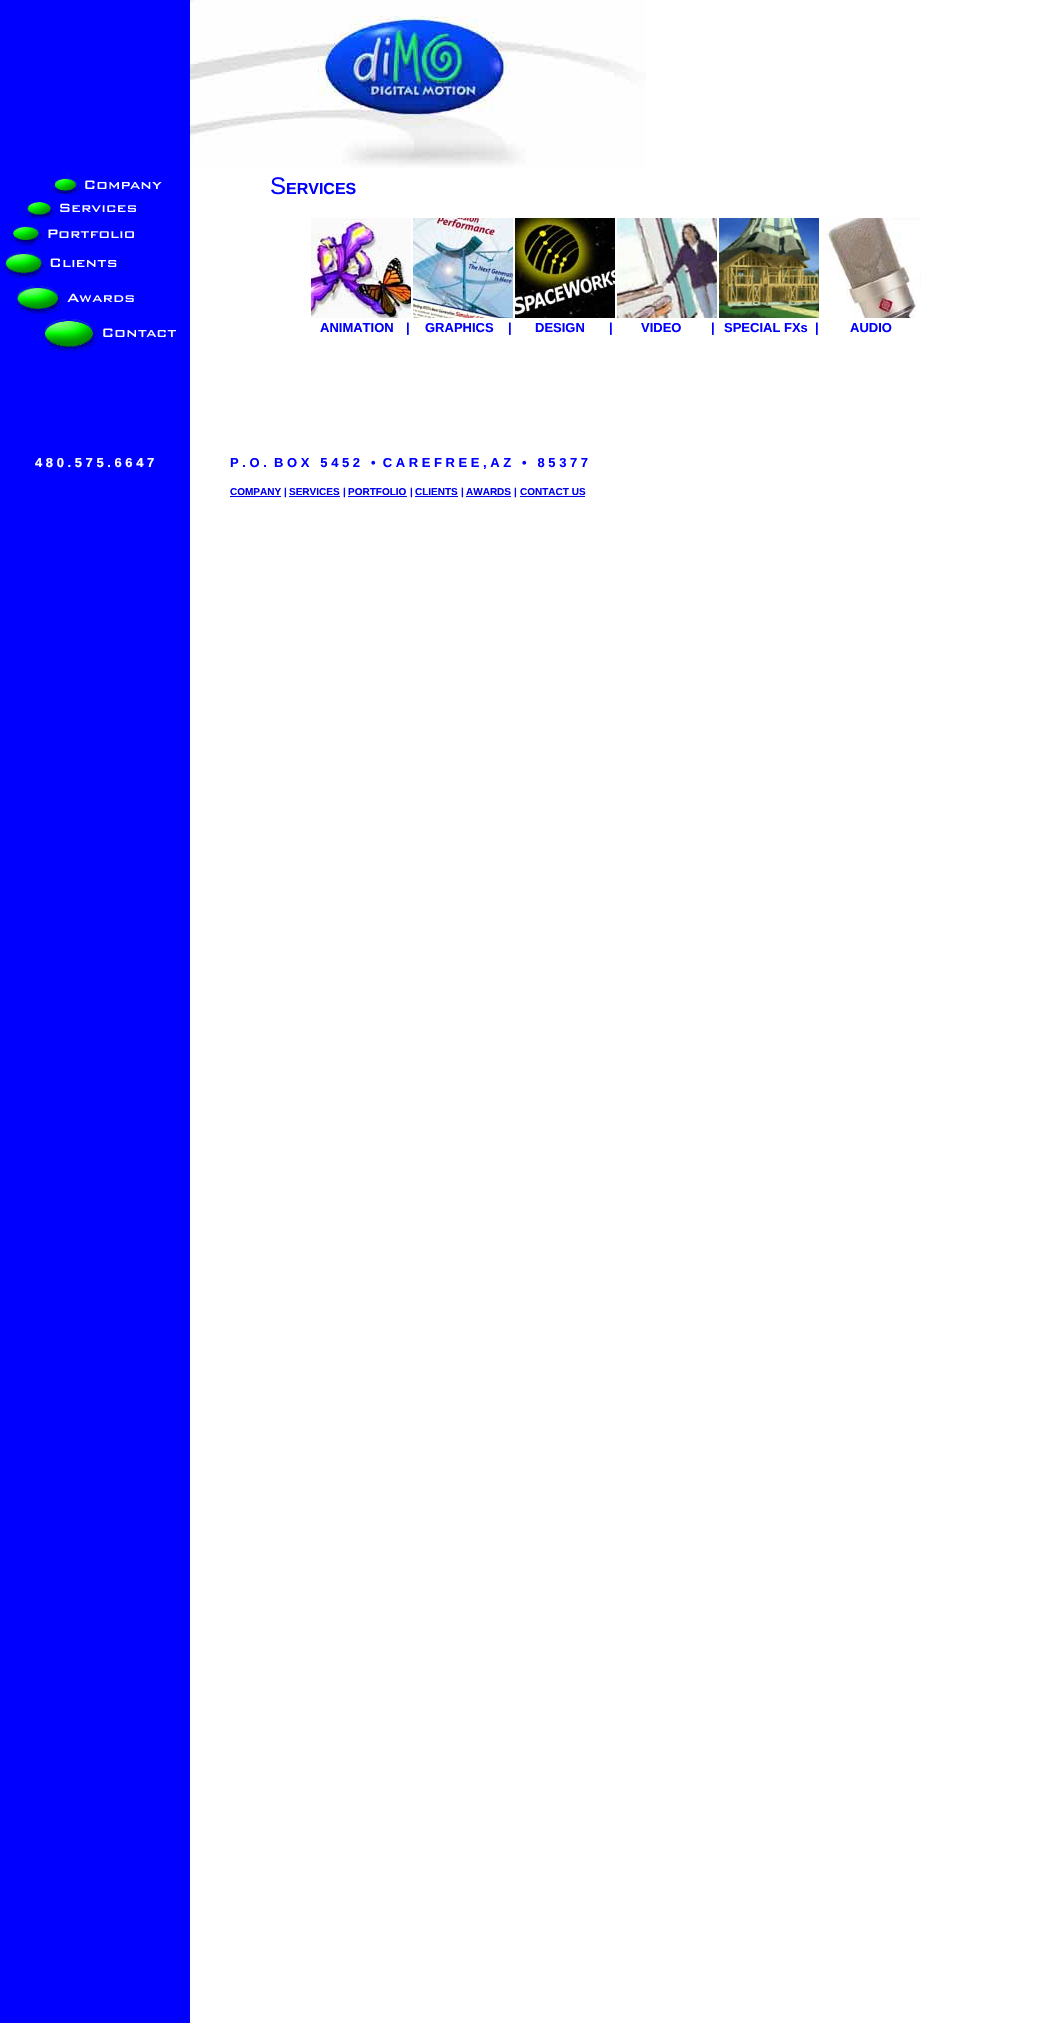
#include "include/core/SkBlurTypes.h"
#include "include/core/SkCanvas.h"
#include "include/core/SkData.h"
#include "include/core/SkFont.h"
#include "include/core/SkFontMgr.h"
#include "include/core/SkImage.h"
#include "include/core/SkMaskFilter.h"
#include "include/core/SkPaint.h"
#include "include/core/SkPathBuilder.h"
#include "include/core/SkTextBlob.h"
#include "include/effects/SkDashPathEffect.h"
#include "include/effects/SkGradientShader.h"
#include "include/utils/SkParsePath.h"

extern sk_sp<SkFontMgr> fontMgr;

void draw(SkCanvas* canvas) {
  SkPaint p;
  p.setAntiAlias(true);
  canvas->clear(SK_ColorWHITE);
  p.setColor(SkColorSetRGB(0, 0, 255));
  canvas->drawRect(SkRect::MakeLTRB(0, 0, 190, 2023), p);
  canvas->drawImageRect(SkImages::DeferredFromEncodedData(SkData::MakeFromFileName("images/1.png")), SkRect::MakeLTRB(49, 172, 162, 194), SkSamplingOptions());
  canvas->drawImageRect(SkImages::DeferredFromEncodedData(SkData::MakeFromFileName("images/2.png")), SkRect::MakeLTRB(21, 201, 136, 218), SkSamplingOptions());
  canvas->drawImageRect(SkImages::DeferredFromEncodedData(SkData::MakeFromFileName("images/3.png")), SkRect::MakeLTRB(7, 225, 134, 246), SkSamplingOptions());
  canvas->drawImageRect(SkImages::DeferredFromEncodedData(SkData::MakeFromFileName("images/4.png")), SkRect::MakeLTRB(0, 246, 117, 278), SkSamplingOptions());
  canvas->drawImageRect(SkImages::DeferredFromEncodedData(SkData::MakeFromFileName("images/5.png")), SkRect::MakeLTRB(1, 280, 134, 314), SkSamplingOptions());
  canvas->drawImageRect(SkImages::DeferredFromEncodedData(SkData::MakeFromFileName("images/6.png")), SkRect::MakeLTRB(42, 317, 176, 353), SkSamplingOptions());
  canvas->drawImageRect(SkImages::DeferredFromEncodedData(SkData::MakeFromFileName("images/7.png")), SkRect::MakeLTRB(190, 0, 646, 168), SkSamplingOptions());
  canvas->drawImageRect(SkImages::DeferredFromEncodedData(SkData::MakeFromFileName("images/8.png")), SkRect::MakeLTRB(311, 218, 411, 318), SkSamplingOptions());
  canvas->drawImageRect(SkImages::DeferredFromEncodedData(SkData::MakeFromFileName("images/9.png")), SkRect::MakeLTRB(413, 218, 513, 318), SkSamplingOptions());
  canvas->drawImageRect(SkImages::DeferredFromEncodedData(SkData::MakeFromFileName("images/10.png")), SkRect::MakeLTRB(515, 218, 615, 318), SkSamplingOptions());
  canvas->drawImageRect(SkImages::DeferredFromEncodedData(SkData::MakeFromFileName("images/11.png")), SkRect::MakeLTRB(617, 218, 717, 318), SkSamplingOptions());
  canvas->drawImageRect(SkImages::DeferredFromEncodedData(SkData::MakeFromFileName("images/12.png")), SkRect::MakeLTRB(719, 218, 819, 318), SkSamplingOptions());
  canvas->drawImageRect(SkImages::DeferredFromEncodedData(SkData::MakeFromFileName("images/13.png")), SkRect::MakeLTRB(821, 218, 921, 318), SkSamplingOptions());
  p.setColor(SkColorSetRGB(0, 0, 238));
  canvas->drawRect(SkRect::MakeLTRB(230, 496, 281, 497), p);
  canvas->drawRect(SkRect::MakeLTRB(289, 496, 340, 497), p);
  canvas->drawRect(SkRect::MakeLTRB(348, 496, 407, 497), p);
  canvas->drawRect(SkRect::MakeLTRB(415, 496, 458, 497), p);
  canvas->drawRect(SkRect::MakeLTRB(466, 496, 511, 497), p);
  canvas->drawRect(SkRect::MakeLTRB(520, 496, 585, 497), p);
  SkFont font1(fontMgr->matchFamilyStyle("Liberation Sans", SkFontStyle::Normal()), 24);
  font1.setSubpixel(true);
  p.setColor(SkColorSetRGB(0, 0, 254));
  canvas->drawString("S", 270, 194, font1, p);
  SkFont font2(fontMgr->matchFamilyStyle("Liberation Sans", SkFontStyle::Bold()), 16);
  font2.setSubpixel(true);
  canvas->drawString("ERVICES", 286, 194, font2, p);
  SkFont font3(fontMgr->matchFamilyStyle("Liberation Sans", SkFontStyle::Bold()), 13);
  font3.setSubpixel(true);
  canvas->drawString("ANIMATION", 320, 332, font3, p);
  canvas->drawString("|", 406, 332, font3, p);
  canvas->drawString("GRAPHICS", 425, 332, font3, p);
  canvas->drawString("|", 508, 332, font3, p);
  canvas->drawString("DESIGN", 535, 332, font3, p);
  canvas->drawString("|", 609, 332, font3, p);
  canvas->drawString("VIDEO", 641, 332, font3, p);
  canvas->drawString("|", 711, 332, font3, p);
  canvas->drawString("SPECIAL FXs", 724, 332, font3, p);
  canvas->drawString("|", 815, 332, font3, p);
  canvas->drawString("AUDIO", 850, 332, font3, p);
  p.setColor(SK_ColorWHITE);
  canvas->drawString("4 8 0 . 5 7 5 . 6 6 4 7", 35, 467, font3, p);
  p.setColor(SkColorSetRGB(0, 0, 254));
  canvas->drawString("P . O .  B O X   5 4 5 2   •  C A R E F R E E , A Z   •   8 5 3 7 7", 230, 467, font3, p);
  SkFont font4(fontMgr->matchFamilyStyle("Liberation Sans", SkFontStyle::Bold()), 10);
  font4.setSubpixel(true);
  p.setColor(SkColorSetRGB(0, 0, 238));
  canvas->drawString("COMPANY", 230, 495, font4, p);
  p.setColor(SkColorSetRGB(0, 0, 254));
  canvas->drawString("|", 284, 495, font4, p);
  p.setColor(SkColorSetRGB(0, 0, 238));
  canvas->drawString("SERVICES", 289, 495, font4, p);
  p.setColor(SkColorSetRGB(0, 0, 254));
  canvas->drawString("|", 343, 495, font4, p);
  p.setColor(SkColorSetRGB(0, 0, 238));
  canvas->drawString("PORTFOLIO", 348, 495, font4, p);
  p.setColor(SkColorSetRGB(0, 0, 254));
  canvas->drawString("|", 410, 495, font4, p);
  p.setColor(SkColorSetRGB(0, 0, 238));
  canvas->drawString("CLIENTS", 415, 495, font4, p);
  p.setColor(SkColorSetRGB(0, 0, 254));
  canvas->drawString("|", 461, 495, font4, p);
  p.setColor(SkColorSetRGB(0, 0, 238));
  canvas->drawString("AWARDS", 466, 495, font4, p);
  p.setColor(SkColorSetRGB(0, 0, 254));
  canvas->drawString("|", 514, 495, font4, p);
  p.setColor(SkColorSetRGB(0, 0, 238));
  canvas->drawString("CONTACT US", 520, 495, font4, p);
}
